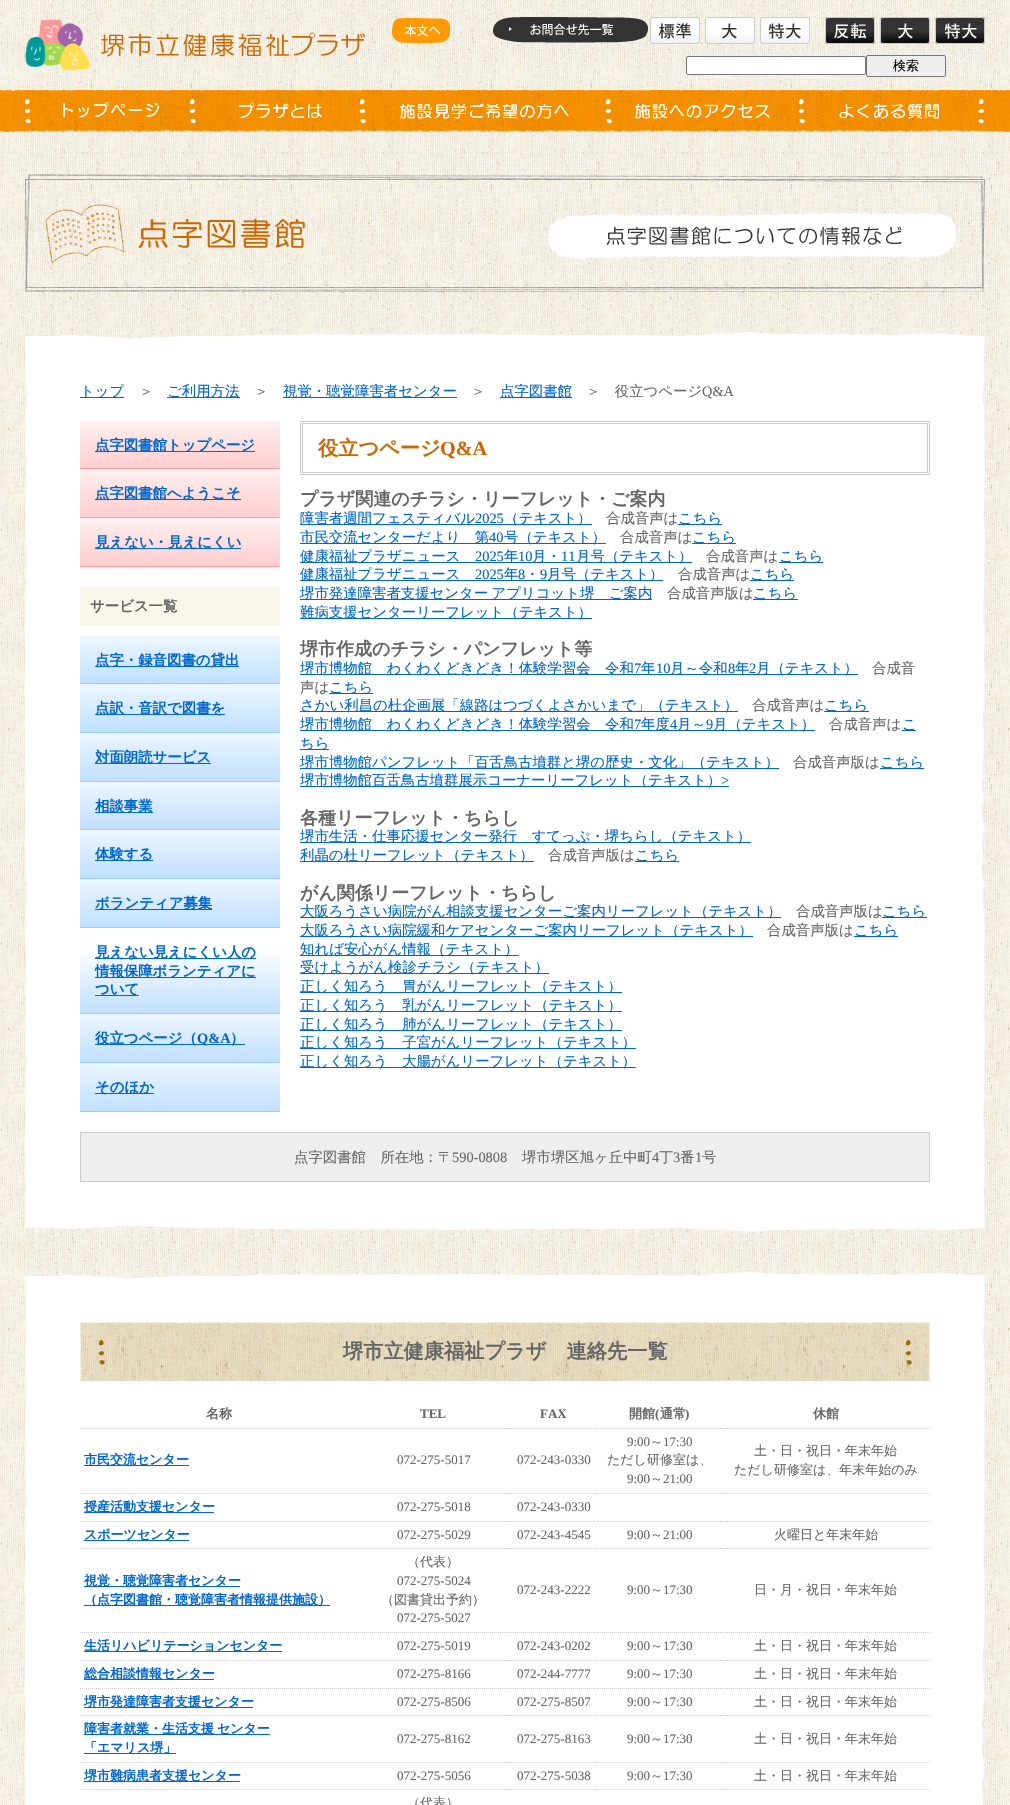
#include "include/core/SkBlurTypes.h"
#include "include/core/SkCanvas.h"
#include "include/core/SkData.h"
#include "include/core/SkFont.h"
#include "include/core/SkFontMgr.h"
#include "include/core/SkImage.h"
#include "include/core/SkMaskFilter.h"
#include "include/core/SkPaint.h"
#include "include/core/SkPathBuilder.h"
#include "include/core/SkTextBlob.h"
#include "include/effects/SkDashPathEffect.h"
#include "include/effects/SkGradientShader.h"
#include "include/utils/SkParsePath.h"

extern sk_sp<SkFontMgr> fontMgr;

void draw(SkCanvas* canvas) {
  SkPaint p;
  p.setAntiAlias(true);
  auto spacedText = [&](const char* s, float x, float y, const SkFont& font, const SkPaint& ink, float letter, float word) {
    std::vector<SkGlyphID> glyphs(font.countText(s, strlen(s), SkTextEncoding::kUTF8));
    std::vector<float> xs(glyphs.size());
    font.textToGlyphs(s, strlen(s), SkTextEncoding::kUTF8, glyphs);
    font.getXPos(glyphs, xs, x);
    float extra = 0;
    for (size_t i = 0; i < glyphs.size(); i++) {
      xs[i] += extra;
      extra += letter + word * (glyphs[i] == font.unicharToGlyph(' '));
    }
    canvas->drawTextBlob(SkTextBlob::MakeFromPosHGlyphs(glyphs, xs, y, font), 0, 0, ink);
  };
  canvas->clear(SK_ColorWHITE);
  canvas->drawImageRect(SkImages::DeferredFromEncodedData(SkData::MakeFromFileName("images/1.png")), SkRect::MakeLTRB(0, 0, 1010, 1805), SkSamplingOptions());
  canvas->drawImageRect(SkImages::DeferredFromEncodedData(SkData::MakeFromFileName("images/2.png")), SkRect::MakeLTRB(25, 19, 365, 71), SkSamplingOptions());
  canvas->drawImageRect(SkImages::DeferredFromEncodedData(SkData::MakeFromFileName("images/3.png")), SkRect::MakeLTRB(392, 18, 450, 43), SkSamplingOptions());
  canvas->drawImageRect(SkImages::DeferredFromEncodedData(SkData::MakeFromFileName("images/4.png")), SkRect::MakeLTRB(493, 17, 648, 43), SkSamplingOptions());
  canvas->drawImageRect(SkImages::DeferredFromEncodedData(SkData::MakeFromFileName("images/5.png")), SkRect::MakeLTRB(650, 17, 700, 44), SkSamplingOptions());
  canvas->drawImageRect(SkImages::DeferredFromEncodedData(SkData::MakeFromFileName("images/6.png")), SkRect::MakeLTRB(705, 17, 755, 44), SkSamplingOptions());
  canvas->drawImageRect(SkImages::DeferredFromEncodedData(SkData::MakeFromFileName("images/7.png")), SkRect::MakeLTRB(760, 17, 810, 44), SkSamplingOptions());
  canvas->drawImageRect(SkImages::DeferredFromEncodedData(SkData::MakeFromFileName("images/8.png")), SkRect::MakeLTRB(825, 17, 875, 44), SkSamplingOptions());
  canvas->drawImageRect(SkImages::DeferredFromEncodedData(SkData::MakeFromFileName("images/9.png")), SkRect::MakeLTRB(880, 17, 930, 44), SkSamplingOptions());
  canvas->drawImageRect(SkImages::DeferredFromEncodedData(SkData::MakeFromFileName("images/10.png")), SkRect::MakeLTRB(935, 17, 985, 44), SkSamplingOptions());
  p.setStyle(SkPaint::kStroke_Style);
  p.setStrokeWidth(1);
  p.setColor(SkColorSetRGB(238, 238, 238));
  canvas->drawRect(SkRect::MakeLTRB(685.5f, 54.5f, 984.5f, 83.5f), p);
  p.setStyle(SkPaint::kFill_Style);
  p.setColor(SK_ColorWHITE);
  canvas->drawRoundRect(SkRect::MakeLTRB(686.5f, 56.5f, 865.5f, 74.5f), 1.5f, 1.5f, p);
  p.setStyle(SkPaint::kStroke_Style);
  p.setColor(SkColorSetRGB(118, 118, 118));
  canvas->drawRoundRect(SkRect::MakeLTRB(686.5f, 56.5f, 865.5f, 74.5f), 1.5f, 1.5f, p);
  p.setStyle(SkPaint::kFill_Style);
  p.setColor(SkColorSetRGB(239, 239, 239));
  canvas->drawRoundRect(SkRect::MakeLTRB(866.5f, 55.5f, 945.5f, 76.5f), 1.5f, 1.5f, p);
  p.setStyle(SkPaint::kStroke_Style);
  p.setColor(SkColorSetRGB(118, 118, 118));
  canvas->drawRoundRect(SkRect::MakeLTRB(866.5f, 55.5f, 945.5f, 76.5f), 1.5f, 1.5f, p);
  canvas->drawImageRect(SkImages::DeferredFromEncodedData(SkData::MakeFromFileName("images/11.png")), SkRect::MakeLTRB(0, 90, 1010, 132), SkSamplingOptions());
  canvas->drawImageRect(SkImages::DeferredFromEncodedData(SkData::MakeFromFileName("images/12.png")), SkRect::MakeLTRB(25, 90, 195, 132), SkSamplingOptions());
  canvas->drawImageRect(SkImages::DeferredFromEncodedData(SkData::MakeFromFileName("images/13.png")), SkRect::MakeLTRB(195, 90, 365, 132), SkSamplingOptions());
  canvas->drawImageRect(SkImages::DeferredFromEncodedData(SkData::MakeFromFileName("images/14.png")), SkRect::MakeLTRB(365, 90, 612, 132), SkSamplingOptions());
  canvas->drawImageRect(SkImages::DeferredFromEncodedData(SkData::MakeFromFileName("images/15.png")), SkRect::MakeLTRB(612, 90, 804, 132), SkSamplingOptions());
  canvas->drawImageRect(SkImages::DeferredFromEncodedData(SkData::MakeFromFileName("images/16.png")), SkRect::MakeLTRB(804, 90, 985, 132), SkSamplingOptions());
  canvas->drawImageRect(SkImages::DeferredFromEncodedData(SkData::MakeFromFileName("images/17.png")), SkRect::MakeLTRB(25, 174, 985, 292), SkSamplingOptions());
  canvas->drawImageRect(SkImages::DeferredFromEncodedData(SkData::MakeFromFileName("images/18.png")), SkRect::MakeLTRB(25, 332, 985, 382), SkSamplingOptions());
  canvas->drawImageRect(SkImages::DeferredFromEncodedData(SkData::MakeFromFileName("images/19.png")), SkRect::MakeLTRB(25, 382, 985, 1182), SkSamplingOptions());
  p.setStyle(SkPaint::kFill_Style);
  p.setColor(SkColorSetRGB(0, 102, 204));
  canvas->drawRect(SkRect::MakeLTRB(80, 397, 124, 398), p);
  canvas->drawRect(SkRect::MakeLTRB(167, 397, 240, 398), p);
  canvas->drawRect(SkRect::MakeLTRB(283, 397, 457, 398), p);
  canvas->drawRect(SkRect::MakeLTRB(500, 397, 572, 398), p);
  canvas->drawImageRect(SkImages::DeferredFromEncodedData(SkData::MakeFromFileName("images/20.png")), SkRect::MakeLTRB(80, 421, 280, 469), SkSamplingOptions());
  canvas->drawRect(SkRect::MakeLTRB(95, 451, 255, 452), p);
  canvas->drawImageRect(SkImages::DeferredFromEncodedData(SkData::MakeFromFileName("images/21.png")), SkRect::MakeLTRB(80, 469, 280, 518), SkSamplingOptions());
  canvas->drawRect(SkRect::MakeLTRB(95, 499, 241, 500), p);
  canvas->drawImageRect(SkImages::DeferredFromEncodedData(SkData::MakeFromFileName("images/21.png")), SkRect::MakeLTRB(80, 518, 280, 567), SkSamplingOptions());
  canvas->drawRect(SkRect::MakeLTRB(95, 548, 241, 549), p);
  p.setColor(SkColorSetRGB(249, 247, 234));
  canvas->drawRect(SkRect::MakeLTRB(80, 587, 280, 626), p);
  canvas->drawImageRect(SkImages::DeferredFromEncodedData(SkData::MakeFromFileName("images/22.png")), SkRect::MakeLTRB(80, 636, 280, 684), SkSamplingOptions());
  p.setColor(SkColorSetRGB(0, 102, 204));
  canvas->drawRect(SkRect::MakeLTRB(95, 666, 239, 667), p);
  canvas->drawImageRect(SkImages::DeferredFromEncodedData(SkData::MakeFromFileName("images/23.png")), SkRect::MakeLTRB(80, 684, 280, 733), SkSamplingOptions());
  canvas->drawRect(SkRect::MakeLTRB(95, 714, 225, 715), p);
  canvas->drawImageRect(SkImages::DeferredFromEncodedData(SkData::MakeFromFileName("images/23.png")), SkRect::MakeLTRB(80, 733, 280, 782), SkSamplingOptions());
  canvas->drawRect(SkRect::MakeLTRB(95, 763, 211, 764), p);
  canvas->drawImageRect(SkImages::DeferredFromEncodedData(SkData::MakeFromFileName("images/22.png")), SkRect::MakeLTRB(80, 782, 280, 830), SkSamplingOptions());
  canvas->drawRect(SkRect::MakeLTRB(95, 812, 153, 813), p);
  canvas->drawImageRect(SkImages::DeferredFromEncodedData(SkData::MakeFromFileName("images/23.png")), SkRect::MakeLTRB(80, 830, 280, 879), SkSamplingOptions());
  canvas->drawRect(SkRect::MakeLTRB(95, 860, 153, 861), p);
  canvas->drawImageRect(SkImages::DeferredFromEncodedData(SkData::MakeFromFileName("images/23.png")), SkRect::MakeLTRB(80, 879, 280, 928), SkSamplingOptions());
  canvas->drawRect(SkRect::MakeLTRB(95, 909, 212, 910), p);
  canvas->drawImageRect(SkImages::DeferredFromEncodedData(SkData::MakeFromFileName("images/24.png")), SkRect::MakeLTRB(80, 951, 280, 1014), SkSamplingOptions());
  canvas->drawRect(SkRect::MakeLTRB(95, 958, 256, 959), p);
  canvas->drawRect(SkRect::MakeLTRB(95, 977, 256, 978), p);
  canvas->drawRect(SkRect::MakeLTRB(95, 995, 139, 996), p);
  canvas->drawImageRect(SkImages::DeferredFromEncodedData(SkData::MakeFromFileName("images/23.png")), SkRect::MakeLTRB(80, 1014, 280, 1063), SkSamplingOptions());
  canvas->drawRect(SkRect::MakeLTRB(95, 1044, 245, 1045), p);
  canvas->drawImageRect(SkImages::DeferredFromEncodedData(SkData::MakeFromFileName("images/23.png")), SkRect::MakeLTRB(80, 1063, 280, 1112), SkSamplingOptions());
  canvas->drawRect(SkRect::MakeLTRB(95, 1093, 154, 1094), p);
  p.setStyle(SkPaint::kStroke_Style);
  p.setColor(SkColorSetRGB(204, 204, 204));
  canvas->drawRect(SkRect::MakeLTRB(300.5f, 421.5f, 929.5f, 474.5f), p);
  canvas->drawRect(SkRect::MakeLTRB(302.5f, 423.5f, 927.5f, 472.5f), p);
  p.setStyle(SkPaint::kFill_Style);
  p.setColor(SkColorSetRGB(0, 102, 204));
  canvas->drawRect(SkRect::MakeLTRB(300, 524, 592, 525), p);
  canvas->drawRect(SkRect::MakeLTRB(678, 524, 722, 525), p);
  canvas->drawRect(SkRect::MakeLTRB(300, 543, 606, 544), p);
  canvas->drawRect(SkRect::MakeLTRB(692, 543, 736, 544), p);
  canvas->drawRect(SkRect::MakeLTRB(300, 562, 692, 563), p);
  canvas->drawRect(SkRect::MakeLTRB(779, 562, 823, 563), p);
  canvas->drawRect(SkRect::MakeLTRB(300, 580, 663, 581), p);
  canvas->drawRect(SkRect::MakeLTRB(750, 580, 794, 581), p);
  canvas->drawRect(SkRect::MakeLTRB(300, 599, 652, 600), p);
  canvas->drawRect(SkRect::MakeLTRB(753, 599, 798, 600), p);
  canvas->drawRect(SkRect::MakeLTRB(300, 618, 592, 619), p);
  canvas->drawRect(SkRect::MakeLTRB(300, 674, 858, 675), p);
  canvas->drawRect(SkRect::MakeLTRB(329, 693, 373, 694), p);
  canvas->drawRect(SkRect::MakeLTRB(300, 711, 738, 712), p);
  canvas->drawRect(SkRect::MakeLTRB(824, 711, 869, 712), p);
  canvas->drawRect(SkRect::MakeLTRB(300, 730, 815, 731), p);
  canvas->drawRect(SkRect::MakeLTRB(902, 730, 916, 731), p);
  canvas->drawRect(SkRect::MakeLTRB(300, 749, 329, 750), p);
  canvas->drawRect(SkRect::MakeLTRB(300, 768, 779, 769), p);
  canvas->drawRect(SkRect::MakeLTRB(880, 768, 924, 769), p);
  canvas->drawRect(SkRect::MakeLTRB(300, 786, 729, 787), p);
  canvas->drawRect(SkRect::MakeLTRB(300, 842, 751, 843), p);
  canvas->drawRect(SkRect::MakeLTRB(300, 861, 534, 862), p);
  canvas->drawRect(SkRect::MakeLTRB(635, 861, 679, 862), p);
  canvas->drawRect(SkRect::MakeLTRB(300, 917, 781, 918), p);
  canvas->drawRect(SkRect::MakeLTRB(882, 917, 927, 918), p);
  canvas->drawRect(SkRect::MakeLTRB(300, 936, 753, 937), p);
  canvas->drawRect(SkRect::MakeLTRB(854, 936, 898, 937), p);
  canvas->drawRect(SkRect::MakeLTRB(300, 955, 519, 956), p);
  canvas->drawRect(SkRect::MakeLTRB(300, 973, 549, 974), p);
  canvas->drawRect(SkRect::MakeLTRB(300, 992, 622, 993), p);
  canvas->drawRect(SkRect::MakeLTRB(300, 1011, 622, 1012), p);
  canvas->drawRect(SkRect::MakeLTRB(300, 1030, 622, 1031), p);
  canvas->drawRect(SkRect::MakeLTRB(300, 1048, 636, 1049), p);
  canvas->drawRect(SkRect::MakeLTRB(300, 1067, 636, 1068), p);
  p.setColor(SkColorSetRGB(238, 238, 238));
  canvas->drawRect(SkRect::MakeLTRB(80.5f, 1132.5f, 929.5f, 1181.5f), p);
  p.setStyle(SkPaint::kStroke_Style);
  p.setColor(SkColorSetRGB(204, 204, 204));
  canvas->drawRect(SkRect::MakeLTRB(80.5f, 1132.5f, 929.5f, 1181.5f), p);
  canvas->drawImageRect(SkImages::DeferredFromEncodedData(SkData::MakeFromFileName("images/25.png")), SkRect::MakeLTRB(25, 1182, 985, 1232), SkSamplingOptions());
  canvas->drawImageRect(SkImages::DeferredFromEncodedData(SkData::MakeFromFileName("images/26.png")), SkRect::MakeLTRB(25, 1272, 985, 1322), SkSamplingOptions());
  canvas->drawImageRect(SkImages::DeferredFromEncodedData(SkData::MakeFromFileName("images/27.png")), SkRect::MakeLTRB(25, 1322, 985, 1805), SkSamplingOptions());
  canvas->drawImageRect(SkImages::DeferredFromEncodedData(SkData::MakeFromFileName("images/28.png")), SkRect::MakeLTRB(80, 1322, 930, 1381), SkSamplingOptions());
  p.setPathEffect(SkDashPathEffect::Make({{1, 1}}, 0));
  canvas->drawPath(SkPathBuilder().moveTo(80, 1428.5f).lineTo(358, 1428.5f).detach(), p);
  p.setPathEffect(nullptr);
  p.setPathEffect(SkDashPathEffect::Make({{1, 1}}, 0));
  canvas->drawPath(SkPathBuilder().moveTo(358, 1428.5f).lineTo(509, 1428.5f).detach(), p);
  p.setPathEffect(nullptr);
  p.setPathEffect(SkDashPathEffect::Make({{1, 1}}, 0));
  canvas->drawPath(SkPathBuilder().moveTo(509, 1428.5f).lineTo(598, 1428.5f).detach(), p);
  p.setPathEffect(nullptr);
  p.setPathEffect(SkDashPathEffect::Make({{1, 1}}, 0));
  canvas->drawPath(SkPathBuilder().moveTo(598, 1428.5f).lineTo(721, 1428.5f).detach(), p);
  p.setPathEffect(nullptr);
  p.setPathEffect(SkDashPathEffect::Make({{1, 1}}, 0));
  canvas->drawPath(SkPathBuilder().moveTo(721, 1428.5f).lineTo(930, 1428.5f).detach(), p);
  p.setPathEffect(nullptr);
  p.setPathEffect(SkDashPathEffect::Make({{1, 1}}, 0));
  canvas->drawPath(SkPathBuilder().moveTo(80, 1493.5f).lineTo(358, 1493.5f).detach(), p);
  p.setPathEffect(nullptr);
  p.setStyle(SkPaint::kFill_Style);
  p.setColor(SkColorSetRGB(0, 102, 204));
  canvas->drawRect(SkRect::MakeLTRB(84, 1465, 189, 1466), p);
  p.setStyle(SkPaint::kStroke_Style);
  p.setColor(SkColorSetRGB(204, 204, 204));
  p.setPathEffect(SkDashPathEffect::Make({{1, 1}}, 0));
  canvas->drawPath(SkPathBuilder().moveTo(358, 1493.5f).lineTo(509, 1493.5f).detach(), p);
  p.setPathEffect(nullptr);
  p.setPathEffect(SkDashPathEffect::Make({{1, 1}}, 0));
  canvas->drawPath(SkPathBuilder().moveTo(509, 1493.5f).lineTo(598, 1493.5f).detach(), p);
  p.setPathEffect(nullptr);
  p.setPathEffect(SkDashPathEffect::Make({{1, 1}}, 0));
  canvas->drawPath(SkPathBuilder().moveTo(598, 1493.5f).lineTo(721, 1493.5f).detach(), p);
  p.setPathEffect(nullptr);
  p.setPathEffect(SkDashPathEffect::Make({{1, 1}}, 0));
  canvas->drawPath(SkPathBuilder().moveTo(721, 1493.5f).lineTo(930, 1493.5f).detach(), p);
  p.setPathEffect(nullptr);
  p.setPathEffect(SkDashPathEffect::Make({{1, 1}}, 0));
  canvas->drawPath(SkPathBuilder().moveTo(80, 1521.5f).lineTo(358, 1521.5f).detach(), p);
  p.setPathEffect(nullptr);
  p.setStyle(SkPaint::kFill_Style);
  p.setColor(SkColorSetRGB(0, 102, 204));
  canvas->drawRect(SkRect::MakeLTRB(84, 1512, 214, 1513), p);
  p.setStyle(SkPaint::kStroke_Style);
  p.setColor(SkColorSetRGB(204, 204, 204));
  p.setPathEffect(SkDashPathEffect::Make({{1, 1}}, 0));
  canvas->drawPath(SkPathBuilder().moveTo(358, 1521.5f).lineTo(509, 1521.5f).detach(), p);
  p.setPathEffect(nullptr);
  p.setPathEffect(SkDashPathEffect::Make({{1, 1}}, 0));
  canvas->drawPath(SkPathBuilder().moveTo(509, 1521.5f).lineTo(598, 1521.5f).detach(), p);
  p.setPathEffect(nullptr);
  p.setPathEffect(SkDashPathEffect::Make({{1, 1}}, 0));
  canvas->drawPath(SkPathBuilder().moveTo(598, 1521.5f).lineTo(721, 1521.5f).detach(), p);
  p.setPathEffect(nullptr);
  p.setPathEffect(SkDashPathEffect::Make({{1, 1}}, 0));
  canvas->drawPath(SkPathBuilder().moveTo(721, 1521.5f).lineTo(930, 1521.5f).detach(), p);
  p.setPathEffect(nullptr);
  p.setPathEffect(SkDashPathEffect::Make({{1, 1}}, 0));
  canvas->drawPath(SkPathBuilder().moveTo(80, 1548.5f).lineTo(358, 1548.5f).detach(), p);
  p.setPathEffect(nullptr);
  p.setStyle(SkPaint::kFill_Style);
  p.setColor(SkColorSetRGB(0, 102, 204));
  canvas->drawRect(SkRect::MakeLTRB(84, 1540, 189, 1541), p);
  p.setStyle(SkPaint::kStroke_Style);
  p.setColor(SkColorSetRGB(204, 204, 204));
  p.setPathEffect(SkDashPathEffect::Make({{1, 1}}, 0));
  canvas->drawPath(SkPathBuilder().moveTo(358, 1548.5f).lineTo(509, 1548.5f).detach(), p);
  p.setPathEffect(nullptr);
  p.setPathEffect(SkDashPathEffect::Make({{1, 1}}, 0));
  canvas->drawPath(SkPathBuilder().moveTo(509, 1548.5f).lineTo(598, 1548.5f).detach(), p);
  p.setPathEffect(nullptr);
  p.setPathEffect(SkDashPathEffect::Make({{1, 1}}, 0));
  canvas->drawPath(SkPathBuilder().moveTo(598, 1548.5f).lineTo(721, 1548.5f).detach(), p);
  p.setPathEffect(nullptr);
  p.setPathEffect(SkDashPathEffect::Make({{1, 1}}, 0));
  canvas->drawPath(SkPathBuilder().moveTo(721, 1548.5f).lineTo(930, 1548.5f).detach(), p);
  p.setPathEffect(nullptr);
  p.setPathEffect(SkDashPathEffect::Make({{1, 1}}, 0));
  canvas->drawPath(SkPathBuilder().moveTo(80, 1632.5f).lineTo(358, 1632.5f).detach(), p);
  p.setPathEffect(nullptr);
  p.setStyle(SkPaint::kFill_Style);
  p.setColor(SkColorSetRGB(0, 102, 204));
  canvas->drawRect(SkRect::MakeLTRB(84, 1586, 240, 1587), p);
  canvas->drawRect(SkRect::MakeLTRB(84, 1605, 330, 1606), p);
  p.setStyle(SkPaint::kStroke_Style);
  p.setColor(SkColorSetRGB(204, 204, 204));
  p.setPathEffect(SkDashPathEffect::Make({{1, 1}}, 0));
  canvas->drawPath(SkPathBuilder().moveTo(358, 1632.5f).lineTo(509, 1632.5f).detach(), p);
  p.setPathEffect(nullptr);
  p.setPathEffect(SkDashPathEffect::Make({{1, 1}}, 0));
  canvas->drawPath(SkPathBuilder().moveTo(509, 1632.5f).lineTo(598, 1632.5f).detach(), p);
  p.setPathEffect(nullptr);
  p.setPathEffect(SkDashPathEffect::Make({{1, 1}}, 0));
  canvas->drawPath(SkPathBuilder().moveTo(598, 1632.5f).lineTo(721, 1632.5f).detach(), p);
  p.setPathEffect(nullptr);
  p.setPathEffect(SkDashPathEffect::Make({{1, 1}}, 0));
  canvas->drawPath(SkPathBuilder().moveTo(721, 1632.5f).lineTo(930, 1632.5f).detach(), p);
  p.setPathEffect(nullptr);
  p.setPathEffect(SkDashPathEffect::Make({{1, 1}}, 0));
  canvas->drawPath(SkPathBuilder().moveTo(80, 1660.5f).lineTo(358, 1660.5f).detach(), p);
  p.setPathEffect(nullptr);
  p.setStyle(SkPaint::kFill_Style);
  p.setColor(SkColorSetRGB(0, 102, 204));
  canvas->drawRect(SkRect::MakeLTRB(84, 1651, 282, 1652), p);
  p.setStyle(SkPaint::kStroke_Style);
  p.setColor(SkColorSetRGB(204, 204, 204));
  p.setPathEffect(SkDashPathEffect::Make({{1, 1}}, 0));
  canvas->drawPath(SkPathBuilder().moveTo(358, 1660.5f).lineTo(509, 1660.5f).detach(), p);
  p.setPathEffect(nullptr);
  p.setPathEffect(SkDashPathEffect::Make({{1, 1}}, 0));
  canvas->drawPath(SkPathBuilder().moveTo(509, 1660.5f).lineTo(598, 1660.5f).detach(), p);
  p.setPathEffect(nullptr);
  p.setPathEffect(SkDashPathEffect::Make({{1, 1}}, 0));
  canvas->drawPath(SkPathBuilder().moveTo(598, 1660.5f).lineTo(721, 1660.5f).detach(), p);
  p.setPathEffect(nullptr);
  p.setPathEffect(SkDashPathEffect::Make({{1, 1}}, 0));
  canvas->drawPath(SkPathBuilder().moveTo(721, 1660.5f).lineTo(930, 1660.5f).detach(), p);
  p.setPathEffect(nullptr);
  p.setPathEffect(SkDashPathEffect::Make({{1, 1}}, 0));
  canvas->drawPath(SkPathBuilder().moveTo(80, 1688.5f).lineTo(358, 1688.5f).detach(), p);
  p.setPathEffect(nullptr);
  p.setStyle(SkPaint::kFill_Style);
  p.setColor(SkColorSetRGB(0, 102, 204));
  canvas->drawRect(SkRect::MakeLTRB(84, 1679, 214, 1680), p);
  p.setStyle(SkPaint::kStroke_Style);
  p.setColor(SkColorSetRGB(204, 204, 204));
  p.setPathEffect(SkDashPathEffect::Make({{1, 1}}, 0));
  canvas->drawPath(SkPathBuilder().moveTo(358, 1688.5f).lineTo(509, 1688.5f).detach(), p);
  p.setPathEffect(nullptr);
  p.setPathEffect(SkDashPathEffect::Make({{1, 1}}, 0));
  canvas->drawPath(SkPathBuilder().moveTo(509, 1688.5f).lineTo(598, 1688.5f).detach(), p);
  p.setPathEffect(nullptr);
  p.setPathEffect(SkDashPathEffect::Make({{1, 1}}, 0));
  canvas->drawPath(SkPathBuilder().moveTo(598, 1688.5f).lineTo(721, 1688.5f).detach(), p);
  p.setPathEffect(nullptr);
  p.setPathEffect(SkDashPathEffect::Make({{1, 1}}, 0));
  canvas->drawPath(SkPathBuilder().moveTo(721, 1688.5f).lineTo(930, 1688.5f).detach(), p);
  p.setPathEffect(nullptr);
  p.setPathEffect(SkDashPathEffect::Make({{1, 1}}, 0));
  canvas->drawPath(SkPathBuilder().moveTo(80, 1715.5f).lineTo(358, 1715.5f).detach(), p);
  p.setPathEffect(nullptr);
  p.setStyle(SkPaint::kFill_Style);
  p.setColor(SkColorSetRGB(0, 102, 204));
  canvas->drawRect(SkRect::MakeLTRB(84, 1707, 253, 1708), p);
  p.setStyle(SkPaint::kStroke_Style);
  p.setColor(SkColorSetRGB(204, 204, 204));
  p.setPathEffect(SkDashPathEffect::Make({{1, 1}}, 0));
  canvas->drawPath(SkPathBuilder().moveTo(358, 1715.5f).lineTo(509, 1715.5f).detach(), p);
  p.setPathEffect(nullptr);
  p.setPathEffect(SkDashPathEffect::Make({{1, 1}}, 0));
  canvas->drawPath(SkPathBuilder().moveTo(509, 1715.5f).lineTo(598, 1715.5f).detach(), p);
  p.setPathEffect(nullptr);
  p.setPathEffect(SkDashPathEffect::Make({{1, 1}}, 0));
  canvas->drawPath(SkPathBuilder().moveTo(598, 1715.5f).lineTo(721, 1715.5f).detach(), p);
  p.setPathEffect(nullptr);
  p.setPathEffect(SkDashPathEffect::Make({{1, 1}}, 0));
  canvas->drawPath(SkPathBuilder().moveTo(721, 1715.5f).lineTo(930, 1715.5f).detach(), p);
  p.setPathEffect(nullptr);
  p.setPathEffect(SkDashPathEffect::Make({{1, 1}}, 0));
  canvas->drawPath(SkPathBuilder().moveTo(80, 1762.5f).lineTo(358, 1762.5f).detach(), p);
  p.setPathEffect(nullptr);
  p.setStyle(SkPaint::kFill_Style);
  p.setColor(SkColorSetRGB(0, 102, 204));
  canvas->drawRect(SkRect::MakeLTRB(84, 1734, 270, 1735), p);
  canvas->drawRect(SkRect::MakeLTRB(84, 1753, 176, 1754), p);
  p.setStyle(SkPaint::kStroke_Style);
  p.setColor(SkColorSetRGB(204, 204, 204));
  p.setPathEffect(SkDashPathEffect::Make({{1, 1}}, 0));
  canvas->drawPath(SkPathBuilder().moveTo(358, 1762.5f).lineTo(509, 1762.5f).detach(), p);
  p.setPathEffect(nullptr);
  p.setPathEffect(SkDashPathEffect::Make({{1, 1}}, 0));
  canvas->drawPath(SkPathBuilder().moveTo(509, 1762.5f).lineTo(598, 1762.5f).detach(), p);
  p.setPathEffect(nullptr);
  p.setPathEffect(SkDashPathEffect::Make({{1, 1}}, 0));
  canvas->drawPath(SkPathBuilder().moveTo(598, 1762.5f).lineTo(721, 1762.5f).detach(), p);
  p.setPathEffect(nullptr);
  p.setPathEffect(SkDashPathEffect::Make({{1, 1}}, 0));
  canvas->drawPath(SkPathBuilder().moveTo(721, 1762.5f).lineTo(930, 1762.5f).detach(), p);
  p.setPathEffect(nullptr);
  p.setPathEffect(SkDashPathEffect::Make({{1, 1}}, 0));
  canvas->drawPath(SkPathBuilder().moveTo(80, 1789.5f).lineTo(358, 1789.5f).detach(), p);
  p.setPathEffect(nullptr);
  p.setStyle(SkPaint::kFill_Style);
  p.setColor(SkColorSetRGB(0, 102, 204));
  canvas->drawRect(SkRect::MakeLTRB(84, 1781, 240, 1782), p);
  p.setStyle(SkPaint::kStroke_Style);
  p.setColor(SkColorSetRGB(204, 204, 204));
  p.setPathEffect(SkDashPathEffect::Make({{1, 1}}, 0));
  canvas->drawPath(SkPathBuilder().moveTo(358, 1789.5f).lineTo(509, 1789.5f).detach(), p);
  p.setPathEffect(nullptr);
  p.setPathEffect(SkDashPathEffect::Make({{1, 1}}, 0));
  canvas->drawPath(SkPathBuilder().moveTo(509, 1789.5f).lineTo(598, 1789.5f).detach(), p);
  p.setPathEffect(nullptr);
  p.setPathEffect(SkDashPathEffect::Make({{1, 1}}, 0));
  canvas->drawPath(SkPathBuilder().moveTo(598, 1789.5f).lineTo(721, 1789.5f).detach(), p);
  p.setPathEffect(nullptr);
  p.setPathEffect(SkDashPathEffect::Make({{1, 1}}, 0));
  canvas->drawPath(SkPathBuilder().moveTo(721, 1789.5f).lineTo(930, 1789.5f).detach(), p);
  p.setPathEffect(nullptr);
  SkFont font1(fontMgr->matchFamilyStyle("WenQuanYi Zen Hei", SkFontStyle(500, SkFontStyle::kNormal_Width, SkFontStyle::kUpright_Slant)), 13);
  font1.setSubpixel(true);
  p.setStyle(SkPaint::kFill_Style);
  p.setColor(SK_ColorBLACK);
  canvas->drawString("検索", 893, 70, font1, p);
  SkFont font2(fontMgr->matchFamilyStyle("WenQuanYi Zen Hei", SkFontStyle(500, SkFontStyle::kNormal_Width, SkFontStyle::kUpright_Slant)), 14.4f);
  font2.setSubpixel(true);
  p.setColor(SkColorSetRGB(0, 102, 204));
  canvas->drawString("トップ", 80, 396, font2, p);
  p.setColor(SkColorSetRGB(102, 102, 102));
  canvas->drawString("＞", 139, 396, font2, p);
  p.setColor(SkColorSetRGB(0, 102, 204));
  canvas->drawString("ご利用方法", 167, 396, font2, p);
  p.setColor(SkColorSetRGB(102, 102, 102));
  canvas->drawString("＞", 254, 396, font2, p);
  p.setColor(SkColorSetRGB(0, 102, 204));
  canvas->drawString("視覚・聴覚障害者センター", 283, 396, font2, p);
  p.setColor(SkColorSetRGB(102, 102, 102));
  canvas->drawString("＞", 471, 396, font2, p);
  p.setColor(SkColorSetRGB(0, 102, 204));
  canvas->drawString("点字図書館", 500, 396, font2, p);
  p.setColor(SkColorSetRGB(102, 102, 102));
  canvas->drawString("＞　役立つページ", 586, 396, font2, p);
  SkFont font3(fontMgr->matchFamilyStyle("Liberation Serif", SkFontStyle::Normal()), 14.4f);
  font3.setSubpixel(true);
  canvas->drawString("Q&A", 702, 396, font3, p);
  SkFont font4(fontMgr->matchFamilyStyle("WenQuanYi Zen Hei", SkFontStyle::Bold()), 14.4f);
  font4.setSubpixel(true);
  p.setColor(SkColorSetRGB(0, 102, 204));
  canvas->drawString("点字図書館トップページ", 95, 450, font4, p);
  canvas->drawString("点字図書館へようこそ", 95, 498, font4, p);
  canvas->drawString("見えない・見えにくい", 95, 547, font4, p);
  p.setColor(SkColorSetRGB(102, 102, 102));
  canvas->drawString("サービス一覧", 90, 611, font4, p);
  p.setColor(SkColorSetRGB(0, 102, 204));
  canvas->drawString("点字・録音図書の貸出", 95, 665, font4, p);
  canvas->drawString("点訳・音訳で図書を", 95, 713, font4, p);
  canvas->drawString("対面朗読サービス", 95, 762, font4, p);
  canvas->drawString("相談事業", 95, 811, font4, p);
  canvas->drawString("体験する", 95, 859, font4, p);
  canvas->drawString("ボランティア募集", 95, 908, font4, p);
  canvas->drawString("見えない見えにくい人の", 95, 957, font4, p);
  canvas->drawString("情報保障ボランティアに", 95, 976, font4, p);
  canvas->drawString("ついて", 95, 994, font4, p);
  canvas->drawString("役立つページ（", 95, 1043, font4, p);
  SkFont font5(fontMgr->matchFamilyStyle("Liberation Serif", SkFontStyle::Bold()), 14.4f);
  font5.setSubpixel(true);
  canvas->drawString("Q&A", 197, 1043, font5, p);
  canvas->drawString("）", 230, 1043, font4, p);
  canvas->drawString("そのほか", 95, 1092, font4, p);
  SkFont font6(fontMgr->matchFamilyStyle("WenQuanYi Zen Hei", SkFontStyle::Bold()), 20.2f);
  font6.setSubpixel(true);
  p.setColor(SkColorSetRGB(204, 102, 0));
  canvas->drawString("役立つページ", 318, 455, font6, p);
  SkFont font7(fontMgr->matchFamilyStyle("Liberation Serif", SkFontStyle::Bold()), 20.2f);
  font7.setSubpixel(true);
  canvas->drawString("Q&A", 440, 455, font7, p);
  SkFont font8(fontMgr->matchFamilyStyle("WenQuanYi Zen Hei", SkFontStyle::Bold()), 18);
  font8.setSubpixel(true);
  p.setColor(SkColorSetRGB(102, 102, 102));
  canvas->drawString("プラザ関連のチラシ・リーフレット・ご案内", 300, 505, font8, p);
  p.setColor(SkColorSetRGB(0, 102, 204));
  canvas->drawString("障害者週間フェスティバル", 300, 523, font2, p);
  canvas->drawString("2025", 475, 523, font3, p);
  canvas->drawString("（テキスト）", 504, 523, font2, p);
  p.setColor(SkColorSetRGB(102, 102, 102));
  canvas->drawString("合成音声は", 606, 523, font2, p);
  p.setColor(SkColorSetRGB(0, 102, 204));
  canvas->drawString("こちら", 678, 523, font2, p);
  canvas->drawString("市民交流センターだより　第", 300, 542, font2, p);
  canvas->drawString("40", 489, 542, font3, p);
  canvas->drawString("号（テキスト）", 504, 542, font2, p);
  p.setColor(SkColorSetRGB(102, 102, 102));
  canvas->drawString("合成音声は", 620, 542, font2, p);
  p.setColor(SkColorSetRGB(0, 102, 204));
  canvas->drawString("こちら", 692, 542, font2, p);
  canvas->drawString("健康福祉プラザニュース", 300, 561, font2, p);
  canvas->drawString("2025", 475, 561, font3, p);
  canvas->drawString("年", 504, 561, font2, p);
  canvas->drawString("10", 518, 561, font3, p);
  canvas->drawString("月・", 532, 561, font2, p);
  canvas->drawString("11", 561, 561, font3, p);
  canvas->drawString("月号（テキスト）", 576, 561, font2, p);
  p.setColor(SkColorSetRGB(102, 102, 102));
  canvas->drawString("合成音声は", 706, 561, font2, p);
  p.setColor(SkColorSetRGB(0, 102, 204));
  canvas->drawString("こちら", 779, 561, font2, p);
  canvas->drawString("健康福祉プラザニュース", 300, 579, font2, p);
  canvas->drawString("2025", 475, 579, font3, p);
  canvas->drawString("年", 504, 579, font2, p);
  canvas->drawString("8", 518, 579, font3, p);
  canvas->drawString("・", 525, 579, font2, p);
  canvas->drawString("9", 540, 579, font3, p);
  canvas->drawString("月号（テキスト）", 547, 579, font2, p);
  p.setColor(SkColorSetRGB(102, 102, 102));
  canvas->drawString("合成音声は", 678, 579, font2, p);
  p.setColor(SkColorSetRGB(0, 102, 204));
  canvas->drawString("こちら", 750, 579, font2, p);
  spacedText("堺市発達障害者支援センター アプリコット堺　ご案内", 300, 598, font2, p, 0, -1);
  p.setColor(SkColorSetRGB(102, 102, 102));
  canvas->drawString("合成音声版は", 667, 598, font2, p);
  p.setColor(SkColorSetRGB(0, 102, 204));
  canvas->drawString("こちら", 753, 598, font2, p);
  canvas->drawString("難病支援センターリーフレット（テキスト）", 300, 617, font2, p);
  p.setColor(SkColorSetRGB(102, 102, 102));
  canvas->drawString("堺市作成のチラシ・パンフレット等", 300, 655, font8, p);
  p.setColor(SkColorSetRGB(0, 102, 204));
  canvas->drawString("堺市博物館　わくわくどきどき！体験学習会　令和", 300, 673, font2, p);
  canvas->drawString("7", 634, 673, font3, p);
  canvas->drawString("年", 641, 673, font2, p);
  canvas->drawString("10", 656, 673, font3, p);
  canvas->drawString("月～令和", 670, 673, font2, p);
  canvas->drawString("8", 728, 673, font3, p);
  canvas->drawString("年", 735, 673, font2, p);
  canvas->drawString("2", 749, 673, font3, p);
  canvas->drawString("月（テキスト）", 756, 673, font2, p);
  p.setColor(SkColorSetRGB(102, 102, 102));
  canvas->drawString("合成音", 872, 673, font2, p);
  canvas->drawString("声は", 300, 692, font2, p);
  p.setColor(SkColorSetRGB(0, 102, 204));
  canvas->drawString("こちら", 329, 692, font2, p);
  canvas->drawString("さかい利昌の杜企画展「線路はつづくよさかいまで」（テキスト）", 300, 710, font2, p);
  p.setColor(SkColorSetRGB(102, 102, 102));
  canvas->drawString("合成音声は", 752, 710, font2, p);
  p.setColor(SkColorSetRGB(0, 102, 204));
  canvas->drawString("こちら", 824, 710, font2, p);
  canvas->drawString("堺市博物館　わくわくどきどき！体験学習会　令和", 300, 729, font2, p);
  canvas->drawString("7", 634, 729, font3, p);
  canvas->drawString("年度", 641, 729, font2, p);
  canvas->drawString("4", 670, 729, font3, p);
  canvas->drawString("月～", 677, 729, font2, p);
  canvas->drawString("9", 706, 729, font3, p);
  canvas->drawString("月（テキスト）", 713, 729, font2, p);
  p.setColor(SkColorSetRGB(102, 102, 102));
  canvas->drawString("合成音声は", 829, 729, font2, p);
  p.setColor(SkColorSetRGB(0, 102, 204));
  canvas->drawString("こ", 902, 729, font2, p);
  canvas->drawString("ちら", 300, 748, font2, p);
  canvas->drawString("堺市博物館パンフレット「百舌鳥古墳群と堺の歴史・文化」（テキスト）", 300, 767, font2, p);
  p.setColor(SkColorSetRGB(102, 102, 102));
  canvas->drawString("合成音声版は", 793, 767, font2, p);
  p.setColor(SkColorSetRGB(0, 102, 204));
  canvas->drawString("こちら", 880, 767, font2, p);
  canvas->drawString("堺市博物館百舌鳥古墳群展示コーナーリーフレット（テキスト）", 300, 785, font2, p);
  canvas->drawString(">", 721, 785, font3, p);
  p.setColor(SkColorSetRGB(102, 102, 102));
  canvas->drawString("各種リーフレット・ちらし", 300, 824, font8, p);
  p.setColor(SkColorSetRGB(0, 102, 204));
  canvas->drawString("堺市生活・仕事応援センター発行　すてっぷ・堺ちらし（テキスト）", 300, 841, font2, p);
  canvas->drawString("利晶の杜リーフレット（テキスト）", 300, 860, font2, p);
  p.setColor(SkColorSetRGB(102, 102, 102));
  canvas->drawString("合成音声版は", 548, 860, font2, p);
  p.setColor(SkColorSetRGB(0, 102, 204));
  canvas->drawString("こちら", 635, 860, font2, p);
  p.setColor(SkColorSetRGB(102, 102, 102));
  canvas->drawString("がん関係リーフレット・ちらし", 300, 899, font8, p);
  p.setColor(SkColorSetRGB(0, 102, 204));
  canvas->drawString("大阪ろうさい病院がん相談支援センターご案内リーフレット（テキスト）", 300, 916, font2, p);
  p.setColor(SkColorSetRGB(102, 102, 102));
  canvas->drawString("合成音声版は", 796, 916, font2, p);
  p.setColor(SkColorSetRGB(0, 102, 204));
  canvas->drawString("こちら", 882, 916, font2, p);
  canvas->drawString("大阪ろうさい病院緩和ケアセンターご案内リーフレット（テキスト）", 300, 935, font2, p);
  p.setColor(SkColorSetRGB(102, 102, 102));
  canvas->drawString("合成音声版は", 767, 935, font2, p);
  p.setColor(SkColorSetRGB(0, 102, 204));
  canvas->drawString("こちら", 854, 935, font2, p);
  canvas->drawString("知れば安心がん情報（テキスト）", 300, 954, font2, p);
  canvas->drawString("受けようがん検診チラシ（テキスト）", 300, 972, font2, p);
  canvas->drawString("正しく知ろう　胃がんリーフレット（テキスト）", 300, 991, font2, p);
  canvas->drawString("正しく知ろう　乳がんリーフレット（テキスト）", 300, 1010, font2, p);
  canvas->drawString("正しく知ろう　肺がんリーフレット（テキスト）", 300, 1029, font2, p);
  canvas->drawString("正しく知ろう　子宮がんリーフレット（テキスト）", 300, 1047, font2, p);
  canvas->drawString("正しく知ろう　大腸がんリーフレット（テキスト）", 300, 1066, font2, p);
  p.setColor(SkColorSetRGB(102, 102, 102));
  canvas->drawString("点字図書館　所在地：〒", 294, 1162, font2, p);
  canvas->drawString("590-0808", 452, 1162, font3, p);
  canvas->drawString("堺市堺区旭ヶ丘中町", 522, 1162, font2, p);
  canvas->drawString("4", 652, 1162, font3, p);
  canvas->drawString("丁", 659, 1162, font2, p);
  canvas->drawString("3", 673, 1162, font3, p);
  canvas->drawString("番", 680, 1162, font2, p);
  canvas->drawString("1", 695, 1162, font3, p);
  canvas->drawString("号", 702, 1162, font2, p);
  canvas->drawString("堺市立健康福祉プラザ　連絡先一覧", 343, 1358, font6, p);
  SkFont font9(fontMgr->matchFamilyStyle("WenQuanYi Zen Hei", SkFontStyle::Bold()), 13);
  font9.setSubpixel(true);
  canvas->drawString("名称", 206, 1418, font9, p);
  SkFont font10(fontMgr->matchFamilyStyle("Liberation Serif", SkFontStyle::Bold()), 13);
  font10.setSubpixel(true);
  canvas->drawString("TEL", 420, 1418, font10, p);
  canvas->drawString("FAX", 540, 1418, font10, p);
  canvas->drawString("開館", 629, 1418, font9, p);
  canvas->drawString("(", 655, 1418, font10, p);
  canvas->drawString("通常", 660, 1418, font9, p);
  canvas->drawString(")", 685, 1418, font10, p);
  canvas->drawString("休館", 813, 1418, font9, p);
  p.setColor(SkColorSetRGB(0, 102, 204));
  canvas->drawString("市民交流センター", 84, 1464, font9, p);
  SkFont font11(fontMgr->matchFamilyStyle("Liberation Serif", SkFontStyle::Normal()), 13);
  font11.setSubpixel(true);
  p.setColor(SkColorSetRGB(102, 102, 102));
  canvas->drawString("072-275-5017", 397, 1464, font11, p);
  canvas->drawString("072-243-0330", 517, 1464, font11, p);
  canvas->drawString("9:00", 627, 1446, font11, p);
  canvas->drawString("～", 650, 1446, font1, p);
  canvas->drawString("17:30", 663, 1446, font11, p);
  canvas->drawString("ただし研修室は、", 607, 1464, font1, p);
  canvas->drawString("9:00", 627, 1483, font11, p);
  canvas->drawString("～", 650, 1483, font1, p);
  canvas->drawString("21:00", 663, 1483, font11, p);
  canvas->drawString("土・日・祝日・年末年始", 754, 1455, font1, p);
  canvas->drawString("ただし研修室は、年末年始のみ", 734, 1474, font1, p);
  p.setColor(SkColorSetRGB(0, 102, 204));
  canvas->drawString("授産活動支援センター", 84, 1511, font9, p);
  p.setColor(SkColorSetRGB(102, 102, 102));
  canvas->drawString("072-275-5018", 397, 1511, font11, p);
  canvas->drawString("072-243-0330", 517, 1511, font11, p);
  p.setColor(SkColorSetRGB(0, 102, 204));
  canvas->drawString("スポーツセンター", 84, 1539, font9, p);
  p.setColor(SkColorSetRGB(102, 102, 102));
  canvas->drawString("072-275-5029", 397, 1539, font11, p);
  canvas->drawString("072-243-4545", 517, 1539, font11, p);
  canvas->drawString("9:00", 627, 1539, font11, p);
  canvas->drawString("～", 650, 1539, font1, p);
  canvas->drawString("21:00", 663, 1539, font11, p);
  canvas->drawString("火曜日と年末年始", 774, 1539, font1, p);
  p.setColor(SkColorSetRGB(0, 102, 204));
  canvas->drawString("視覚・聴覚障害者センター", 84, 1585, font9, p);
  canvas->drawString("（点字図書館・聴覚障害者情報提供施設）", 84, 1604, font9, p);
  p.setColor(SkColorSetRGB(102, 102, 102));
  canvas->drawString("（代表）", 407, 1566, font1, p);
  canvas->drawString("072-275-5024", 397, 1585, font11, p);
  canvas->drawString("（図書貸出予約）", 381, 1604, font1, p);
  canvas->drawString("072-275-5027", 397, 1622, font11, p);
  canvas->drawString("072-243-2222", 517, 1594, font11, p);
  canvas->drawString("9:00", 627, 1594, font11, p);
  canvas->drawString("～", 650, 1594, font1, p);
  canvas->drawString("17:30", 663, 1594, font11, p);
  canvas->drawString("日・月・祝日・年末年始", 754, 1594, font1, p);
  p.setColor(SkColorSetRGB(0, 102, 204));
  canvas->drawString("生活リハビリテーションセンター", 84, 1650, font9, p);
  p.setColor(SkColorSetRGB(102, 102, 102));
  canvas->drawString("072-275-5019", 397, 1650, font11, p);
  canvas->drawString("072-243-0202", 517, 1650, font11, p);
  canvas->drawString("9:00", 627, 1650, font11, p);
  canvas->drawString("～", 650, 1650, font1, p);
  canvas->drawString("17:30", 663, 1650, font11, p);
  canvas->drawString("土・日・祝日・年末年始", 754, 1650, font1, p);
  p.setColor(SkColorSetRGB(0, 102, 204));
  canvas->drawString("総合相談情報センター", 84, 1678, font9, p);
  p.setColor(SkColorSetRGB(102, 102, 102));
  canvas->drawString("072-275-8166", 397, 1678, font11, p);
  canvas->drawString("072-244-7777", 517, 1678, font11, p);
  canvas->drawString("9:00", 627, 1678, font11, p);
  canvas->drawString("～", 650, 1678, font1, p);
  canvas->drawString("17:30", 663, 1678, font11, p);
  canvas->drawString("土・日・祝日・年末年始", 754, 1678, font1, p);
  p.setColor(SkColorSetRGB(0, 102, 204));
  canvas->drawString("堺市発達障害者支援センター", 84, 1706, font9, p);
  p.setColor(SkColorSetRGB(102, 102, 102));
  canvas->drawString("072-275-8506", 397, 1706, font11, p);
  canvas->drawString("072-275-8507", 517, 1706, font11, p);
  canvas->drawString("9:00", 627, 1706, font11, p);
  canvas->drawString("～", 650, 1706, font1, p);
  canvas->drawString("17:30", 663, 1706, font11, p);
  canvas->drawString("土・日・祝日・年末年始", 754, 1706, font1, p);
  p.setColor(SkColorSetRGB(0, 102, 204));
  spacedText("障害者就業・生活支援 センター", 84, 1733, font9, p, 0, -1);
  canvas->drawString("「エマリス堺」", 84, 1752, font9, p);
  p.setColor(SkColorSetRGB(102, 102, 102));
  canvas->drawString("072-275-8162", 397, 1743, font11, p);
  canvas->drawString("072-275-8163", 517, 1743, font11, p);
  canvas->drawString("9:00", 627, 1743, font11, p);
  canvas->drawString("～", 650, 1743, font1, p);
  canvas->drawString("17:30", 663, 1743, font11, p);
  canvas->drawString("土・日・祝日・年末年始", 754, 1743, font1, p);
  p.setColor(SkColorSetRGB(0, 102, 204));
  canvas->drawString("堺市難病患者支援センター", 84, 1780, font9, p);
  p.setColor(SkColorSetRGB(102, 102, 102));
  canvas->drawString("072-275-5056", 397, 1780, font11, p);
  canvas->drawString("072-275-5038", 517, 1780, font11, p);
  canvas->drawString("9:00", 627, 1780, font11, p);
  canvas->drawString("～", 650, 1780, font1, p);
  canvas->drawString("17:30", 663, 1780, font11, p);
  canvas->drawString("土・日・祝日・年末年始", 754, 1780, font1, p);
  canvas->drawString("（代表）", 407, 1807, font1, p);
}
